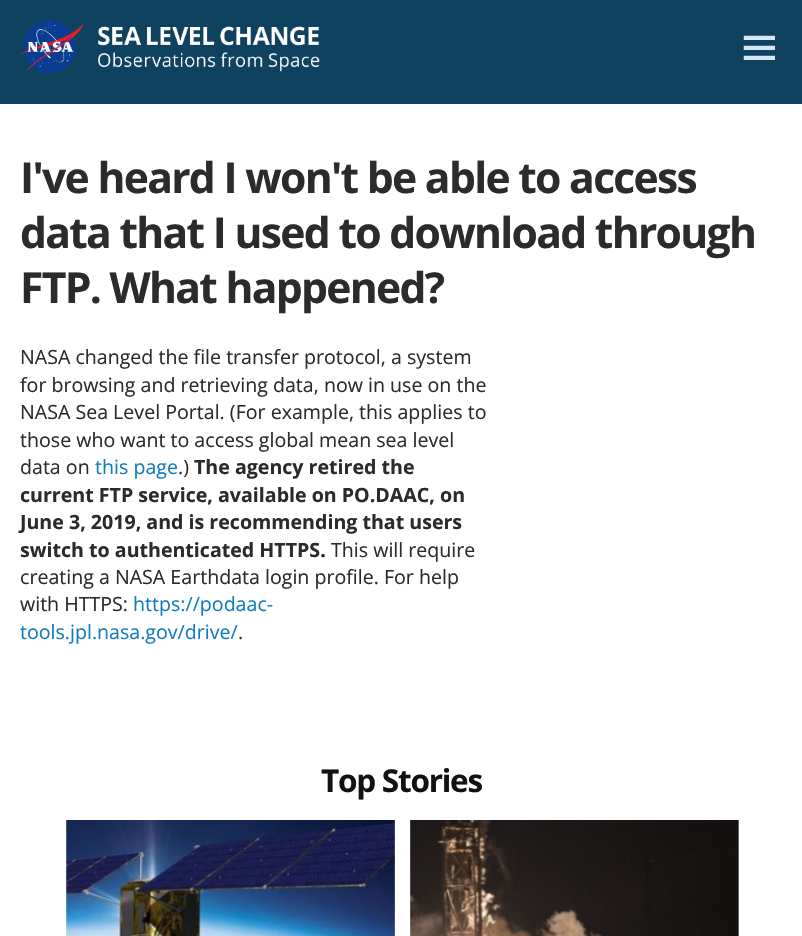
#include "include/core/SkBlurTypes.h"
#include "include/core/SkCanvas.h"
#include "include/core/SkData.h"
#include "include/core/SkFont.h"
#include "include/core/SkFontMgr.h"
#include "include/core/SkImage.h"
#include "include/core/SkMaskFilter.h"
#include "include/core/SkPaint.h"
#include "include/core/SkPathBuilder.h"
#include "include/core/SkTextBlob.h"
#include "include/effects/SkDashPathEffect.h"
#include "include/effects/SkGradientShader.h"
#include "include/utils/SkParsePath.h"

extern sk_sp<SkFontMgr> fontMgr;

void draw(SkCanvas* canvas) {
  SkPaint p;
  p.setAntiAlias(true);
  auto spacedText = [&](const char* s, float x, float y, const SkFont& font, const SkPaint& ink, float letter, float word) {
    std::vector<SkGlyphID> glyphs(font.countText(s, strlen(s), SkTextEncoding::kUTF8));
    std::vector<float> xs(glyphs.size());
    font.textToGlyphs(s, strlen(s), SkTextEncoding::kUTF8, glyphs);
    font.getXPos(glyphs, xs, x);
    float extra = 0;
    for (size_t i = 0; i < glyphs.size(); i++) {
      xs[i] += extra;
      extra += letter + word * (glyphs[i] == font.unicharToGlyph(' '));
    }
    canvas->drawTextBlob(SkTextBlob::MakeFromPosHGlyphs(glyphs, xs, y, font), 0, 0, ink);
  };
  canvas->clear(SK_ColorWHITE);
  p.setColor(SkColorSetRGB(15, 66, 95));
  canvas->drawRect(SkRect::MakeLTRB(0, 0, 802, 104), p);
  canvas->drawImageRect(SkImages::DeferredFromEncodedData(SkData::MakeFromFileName("images/1.png")), SkRect::MakeLTRB(20, 20, 320, 74), SkSamplingOptions());
  canvas->drawImageRect(SkImages::DeferredFromEncodedData(SkData::MakeFromFileName("images/2.png")), SkRect::MakeLTRB(743, 35, 775, 60), SkSamplingOptions());
  canvas->drawImageRect(SkImages::DeferredFromEncodedData(SkData::MakeFromFileName("images/3.png")), SkRect::MakeLTRB(66, 820, 395, 936), SkSamplingOptions());
  canvas->drawImageRect(SkImages::DeferredFromEncodedData(SkData::MakeFromFileName("images/4.png")), SkRect::MakeLTRB(410, 820, 739, 936), SkSamplingOptions());
  SkFont font1(fontMgr->matchFamilyStyle("Open Sans", SkFontStyle::Bold()), 42.6f);
  font1.setSubpixel(true);
  p.setColor(SkColorSetRGB(43, 43, 43));
  spacedText("I've heard I won't be able to access", 20, 193, font1, p, -1.7f, 0);
  spacedText("data that I used to download through", 20, 248, font1, p, -1.7f, 0);
  spacedText("FTP. What happened?", 20, 303, font1, p, -1.7f, 0);
  SkFont font2(fontMgr->matchFamilyStyle("Open Sans", SkFontStyle::Normal()), 19.6f);
  font2.setSubpixel(true);
  canvas->drawString("NASA changed the file transfer protocol, a system", 20, 364, font2, p);
  canvas->drawString("for browsing and retrieving data, now in use on the", 20, 392, font2, p);
  canvas->drawString("NASA Sea Level Portal. (For example, this applies to", 20, 419, font2, p);
  canvas->drawString("those who want to access global mean sea level", 20, 447, font2, p);
  canvas->drawString("data on", 20, 474, font2, p);
  p.setColor(SkColorSetRGB(17, 124, 192));
  canvas->drawString("this page", 95, 474, font2, p);
  p.setColor(SkColorSetRGB(43, 43, 43));
  canvas->drawString(".)", 178, 474, font2, p);
  SkFont font3(fontMgr->matchFamilyStyle("Open Sans", SkFontStyle::Bold()), 19.6f);
  font3.setSubpixel(true);
  canvas->drawString("The agency retired the", 194, 474, font3, p);
  canvas->drawString("current FTP service, available on PO.DAAC, on", 20, 502, font3, p);
  canvas->drawString("June 3, 2019, and is recommending that users", 20, 529, font3, p);
  canvas->drawString("switch to authenticated HTTPS.", 20, 557, font3, p);
  canvas->drawString("This will require", 331, 557, font2, p);
  canvas->drawString("creating a NASA Earthdata login profile. For help", 20, 584, font2, p);
  canvas->drawString("with HTTPS:", 20, 611, font2, p);
  p.setColor(SkColorSetRGB(17, 124, 192));
  canvas->drawString("https://podaac-", 133, 611, font2, p);
  canvas->drawString("tools.jpl.nasa.gov/drive/", 20, 639, font2, p);
  p.setColor(SkColorSetRGB(43, 43, 43));
  canvas->drawString(".", 238, 639, font2, p);
  SkFont font4(fontMgr->matchFamilyStyle("Open Sans", SkFontStyle::Bold()), 31.5f);
  font4.setSubpixel(true);
  p.setColor(SkColorSetRGB(17, 17, 17));
  spacedText("Top Stories", 321, 792, font4, p, -1.25f, 0);
}
